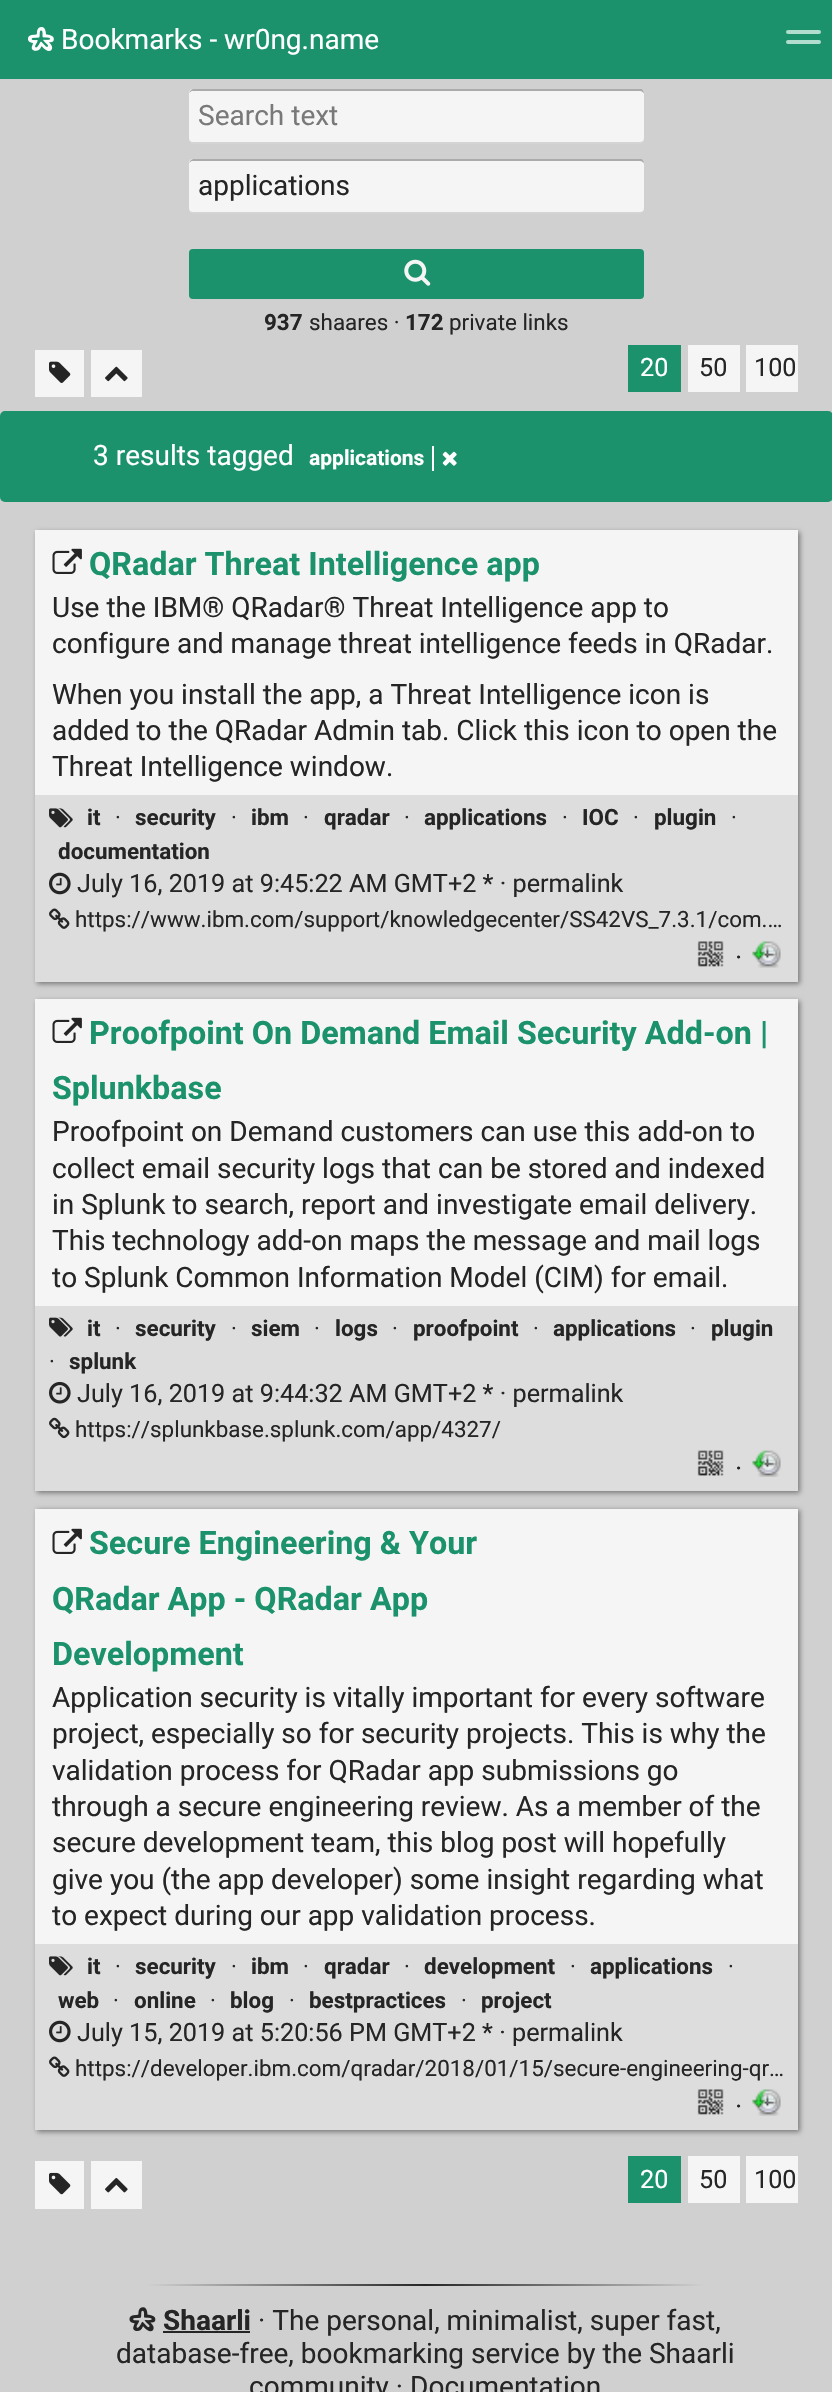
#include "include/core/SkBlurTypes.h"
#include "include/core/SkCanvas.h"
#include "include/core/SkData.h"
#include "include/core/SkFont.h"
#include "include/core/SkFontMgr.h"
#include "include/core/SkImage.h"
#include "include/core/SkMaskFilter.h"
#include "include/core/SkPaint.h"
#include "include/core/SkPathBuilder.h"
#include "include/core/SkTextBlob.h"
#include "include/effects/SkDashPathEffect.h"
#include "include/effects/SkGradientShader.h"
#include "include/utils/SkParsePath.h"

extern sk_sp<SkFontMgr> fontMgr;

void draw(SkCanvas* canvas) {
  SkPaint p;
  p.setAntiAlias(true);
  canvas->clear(SkColorSetRGB(208, 208, 208));
  p.setColor(SkColorSetRGB(27, 146, 108));
  canvas->drawRect(SkRect::MakeLTRB(0, 0, 832, 79), p);
  canvas->drawImageRect(SkImages::DeferredFromEncodedData(SkData::MakeFromFileName("images/1.png")), SkRect::MakeLTRB(28, 27, 54, 51), SkSamplingOptions());
  p.setColor(SkColorSetRGB(176, 221, 206));
  canvas->drawRoundRect(SkRect::MakeLTRB(786, 30, 821, 34), 2, 2, p);
  canvas->drawRoundRect(SkRect::MakeLTRB(786, 40, 821, 44), 2, 2, p);
  p.setColor(SkColorSetRGB(212, 212, 212));
  canvas->drawPath(SkPathBuilder().moveTo(189, 138).cubicTo(189, 141, 190, 144, 193, 144).lineTo(640, 144).cubicTo(643, 144, 644, 141, 644, 138).cubicTo(644, 140, 642, 142, 640, 142).lineTo(192, 142).cubicTo(191, 142, 189, 140, 189, 138).close().detach(), p);
  p.setColor(SkColorSetRGB(245, 245, 245));
  canvas->drawRoundRect(SkRect::MakeLTRB(189, 89, 644, 142), 4, 4, p);
  p.setColor(SkColorSetARGB(77, 0, 0, 0));
  canvas->drawPath(SkPathBuilder().moveTo(192, 91).lineTo(640, 91).cubicTo(642, 91, 644, 93, 644, 94).cubicTo(644, 91, 643, 89, 640, 89).lineTo(193, 89).lineTo(191, 90).lineTo(190, 91).lineTo(189, 94).cubicTo(189, 93, 191, 91, 192, 91).close().detach(), p);
  p.setColor(SkColorSetRGB(212, 212, 212));
  canvas->drawPath(SkPathBuilder().moveTo(189, 208).cubicTo(189, 211, 190, 214, 193, 214).lineTo(640, 214).cubicTo(643, 214, 644, 211, 644, 208).cubicTo(644, 210, 642, 212, 640, 212).lineTo(192, 212).cubicTo(191, 212, 189, 210, 189, 208).close().detach(), p);
  p.setColor(SkColorSetRGB(245, 245, 245));
  canvas->drawRoundRect(SkRect::MakeLTRB(189, 159, 644, 212), 4, 4, p);
  p.setColor(SkColorSetARGB(77, 0, 0, 0));
  canvas->drawPath(SkPathBuilder().moveTo(192, 161).lineTo(640, 161).cubicTo(642, 161, 644, 163, 644, 164).cubicTo(644, 161, 643, 159, 640, 159).lineTo(193, 159).lineTo(191, 160).lineTo(190, 161).lineTo(189, 164).cubicTo(189, 163, 191, 161, 192, 161).close().detach(), p);
  p.setColor(SkColorSetRGB(27, 146, 108));
  canvas->drawRoundRect(SkRect::MakeLTRB(189, 249, 644, 299), 4, 4, p);
  canvas->drawImageRect(SkImages::DeferredFromEncodedData(SkData::MakeFromFileName("images/2.png")), SkRect::MakeLTRB(404, 259, 431, 286), SkSamplingOptions());
  p.setColor(SkColorSetRGB(245, 245, 245));
  canvas->drawRect(SkRect::MakeLTRB(35, 350, 84, 397), p);
  canvas->drawImageRect(SkImages::DeferredFromEncodedData(SkData::MakeFromFileName("images/3.png")), SkRect::MakeLTRB(49, 361, 71, 383), SkSamplingOptions());
  canvas->drawRect(SkRect::MakeLTRB(91, 350, 142, 397), p);
  canvas->drawImageRect(SkImages::DeferredFromEncodedData(SkData::MakeFromFileName("images/4.png")), SkRect::MakeLTRB(105, 366, 128, 382), SkSamplingOptions());
  p.setColor(SkColorSetRGB(27, 146, 108));
  canvas->drawRect(SkRect::MakeLTRB(628, 345, 681, 392), p);
  p.setColor(SkColorSetRGB(245, 245, 245));
  canvas->drawRect(SkRect::MakeLTRB(688, 345, 740, 392), p);
  canvas->drawRect(SkRect::MakeLTRB(746, 345, 798, 392), p);
  p.setColor(SkColorSetRGB(27, 146, 108));
  canvas->drawRoundRect(SkRect::MakeLTRB(0, 411, 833, 502), 5, 5, p);
  p.setColor(SK_ColorWHITE);
  canvas->drawRect(SkRect::MakeLTRB(432, 446, 434, 471), p);
  canvas->drawImageRect(SkImages::DeferredFromEncodedData(SkData::MakeFromFileName("images/5.png")), SkRect::MakeLTRB(442, 451, 457, 466), SkSamplingOptions());
  p.setColor(SkColorSetRGB(121, 121, 121));
  p.setMaskFilter(SkMaskFilter::MakeBlur(kNormal_SkBlurStyle, 2.5f));
  canvas->drawRect(SkRect::MakeLTRB(37, 532, 800, 984), p);
  p.setMaskFilter(nullptr);
  p.setColor(SkColorSetRGB(245, 245, 245));
  canvas->drawRect(SkRect::MakeLTRB(35, 530, 798, 795), p);
  canvas->drawImageRect(SkImages::DeferredFromEncodedData(SkData::MakeFromFileName("images/6.png")), SkRect::MakeLTRB(52, 548, 82, 574), SkSamplingOptions());
  p.setColor(SkColorSetRGB(221, 221, 221));
  canvas->drawRect(SkRect::MakeLTRB(35, 795, 798, 982), p);
  canvas->drawImageRect(SkImages::DeferredFromEncodedData(SkData::MakeFromFileName("images/7.png")), SkRect::MakeLTRB(49, 808, 73, 828), SkSamplingOptions());
  canvas->drawImageRect(SkImages::DeferredFromEncodedData(SkData::MakeFromFileName("images/8.png")), SkRect::MakeLTRB(49, 872, 71, 895), SkSamplingOptions());
  canvas->drawImageRect(SkImages::DeferredFromEncodedData(SkData::MakeFromFileName("images/9.png")), SkRect::MakeLTRB(49, 908, 70, 929), SkSamplingOptions());
  canvas->drawImageRect(SkImages::DeferredFromEncodedData(SkData::MakeFromFileName("images/10.png")), SkRect::MakeLTRB(697, 941, 724, 967), SkSamplingOptions());
  canvas->drawImageRect(SkImages::DeferredFromEncodedData(SkData::MakeFromFileName("images/11.png")), SkRect::MakeLTRB(752, 941, 781, 968), SkSamplingOptions());
  p.setColor(SkColorSetRGB(121, 121, 121));
  p.setMaskFilter(SkMaskFilter::MakeBlur(kNormal_SkBlurStyle, 2.5f));
  canvas->drawRect(SkRect::MakeLTRB(37, 1001, 800, 1493), p);
  p.setMaskFilter(nullptr);
  p.setColor(SkColorSetRGB(245, 245, 245));
  canvas->drawRect(SkRect::MakeLTRB(35, 999, 798, 1306), p);
  canvas->drawImageRect(SkImages::DeferredFromEncodedData(SkData::MakeFromFileName("images/6.png")), SkRect::MakeLTRB(52, 1017, 82, 1043), SkSamplingOptions());
  p.setColor(SkColorSetRGB(221, 221, 221));
  canvas->drawRect(SkRect::MakeLTRB(35, 1306, 798, 1491), p);
  canvas->drawImageRect(SkImages::DeferredFromEncodedData(SkData::MakeFromFileName("images/12.png")), SkRect::MakeLTRB(49, 1317, 73, 1337), SkSamplingOptions());
  canvas->drawImageRect(SkImages::DeferredFromEncodedData(SkData::MakeFromFileName("images/13.png")), SkRect::MakeLTRB(49, 1381, 71, 1404), SkSamplingOptions());
  canvas->drawImageRect(SkImages::DeferredFromEncodedData(SkData::MakeFromFileName("images/14.png")), SkRect::MakeLTRB(49, 1417, 70, 1439), SkSamplingOptions());
  canvas->drawImageRect(SkImages::DeferredFromEncodedData(SkData::MakeFromFileName("images/15.png")), SkRect::MakeLTRB(697, 1450, 724, 1476), SkSamplingOptions());
  canvas->drawImageRect(SkImages::DeferredFromEncodedData(SkData::MakeFromFileName("images/16.png")), SkRect::MakeLTRB(752, 1450, 781, 1477), SkSamplingOptions());
  p.setColor(SkColorSetRGB(121, 121, 121));
  p.setMaskFilter(SkMaskFilter::MakeBlur(kNormal_SkBlurStyle, 2.5f));
  canvas->drawRect(SkRect::MakeLTRB(37, 1510, 800, 2132), p);
  p.setMaskFilter(nullptr);
  p.setColor(SkColorSetRGB(245, 245, 245));
  canvas->drawRect(SkRect::MakeLTRB(35, 1509, 798, 1944), p);
  canvas->drawImageRect(SkImages::DeferredFromEncodedData(SkData::MakeFromFileName("images/6.png")), SkRect::MakeLTRB(52, 1528, 82, 1554), SkSamplingOptions());
  p.setColor(SkColorSetRGB(221, 221, 221));
  canvas->drawRect(SkRect::MakeLTRB(35, 1944, 798, 2130), p);
  canvas->drawImageRect(SkImages::DeferredFromEncodedData(SkData::MakeFromFileName("images/7.png")), SkRect::MakeLTRB(49, 1956, 73, 1976), SkSamplingOptions());
  canvas->drawImageRect(SkImages::DeferredFromEncodedData(SkData::MakeFromFileName("images/8.png")), SkRect::MakeLTRB(49, 2020, 71, 2043), SkSamplingOptions());
  canvas->drawImageRect(SkImages::DeferredFromEncodedData(SkData::MakeFromFileName("images/9.png")), SkRect::MakeLTRB(49, 2056, 70, 2077), SkSamplingOptions());
  canvas->drawImageRect(SkImages::DeferredFromEncodedData(SkData::MakeFromFileName("images/10.png")), SkRect::MakeLTRB(697, 2089, 724, 2115), SkSamplingOptions());
  canvas->drawImageRect(SkImages::DeferredFromEncodedData(SkData::MakeFromFileName("images/11.png")), SkRect::MakeLTRB(752, 2089, 781, 2116), SkSamplingOptions());
  p.setColor(SkColorSetRGB(245, 245, 245));
  canvas->drawRect(SkRect::MakeLTRB(35, 2161, 84, 2209), p);
  canvas->drawImageRect(SkImages::DeferredFromEncodedData(SkData::MakeFromFileName("images/17.png")), SkRect::MakeLTRB(49, 2172, 71, 2195), SkSamplingOptions());
  canvas->drawRect(SkRect::MakeLTRB(91, 2161, 142, 2209), p);
  canvas->drawImageRect(SkImages::DeferredFromEncodedData(SkData::MakeFromFileName("images/18.png")), SkRect::MakeLTRB(105, 2177, 128, 2193), SkSamplingOptions());
  p.setColor(SkColorSetRGB(27, 146, 108));
  canvas->drawRect(SkRect::MakeLTRB(628, 2156, 681, 2203), p);
  p.setColor(SkColorSetRGB(245, 245, 245));
  canvas->drawRect(SkRect::MakeLTRB(688, 2156, 740, 2203), p);
  canvas->drawRect(SkRect::MakeLTRB(746, 2156, 798, 2203), p);
  {
    const SkColor colors[] = {SkColorSetRGB(208, 208, 208), SkColorSetRGB(37, 37, 37), SkColorSetRGB(208, 208, 208)};
    const float stops[] = {0, 0.5f, 1};
    const SkPoint ends[] = {{147, 2285}, {704, 2285}};
    p.setShader(SkGradientShader::MakeLinear(ends, colors, stops, 3, SkTileMode::kClamp));
    p.setAlpha(255);
  }
  canvas->drawRect(SkRect::MakeLTRB(147, 2284, 704, 2286), p);
  canvas->drawImageRect(SkImages::DeferredFromEncodedData(SkData::MakeFromFileName("images/19.png")), SkRect::MakeLTRB(129, 2307, 156, 2332), SkSamplingOptions());
  p.setShader(nullptr);
  p.setColor(SkColorSetRGB(37, 37, 37));
  canvas->drawRect(SkRect::MakeLTRB(163, 2331, 250, 2333), p);
  SkFont font1(fontMgr->matchFamilyStyle("Roboto", SkFontStyle::Normal()), 28);
  font1.setSubpixel(true);
  p.setColor(SK_ColorWHITE);
  canvas->drawString("Bookmarks - wr0ng.name", 61, 49, font1, p);
  p.setColor(SkColorSetRGB(121, 121, 121));
  canvas->drawString("Search text", 198, 125, font1, p);
  p.setColor(SkColorSetRGB(37, 37, 37));
  canvas->drawString("applications", 198, 195, font1, p);
  SkFont font2(fontMgr->matchFamilyStyle("Roboto", SkFontStyle::Bold()), 22.4f);
  font2.setSubpixel(true);
  canvas->drawString("937", 264, 330, font2, p);
  SkFont font3(fontMgr->matchFamilyStyle("Roboto", SkFontStyle::Normal()), 22.4f);
  font3.setSubpixel(true);
  canvas->drawString("shaares ·", 309, 330, font3, p);
  canvas->drawString("172", 405, 330, font2, p);
  canvas->drawString("private links", 449, 330, font3, p);
  SkFont font4(fontMgr->matchFamilyStyle("Roboto", SkFontStyle::Normal()), 25.2f);
  font4.setSubpixel(true);
  p.setColor(SK_ColorWHITE);
  canvas->drawString("20", 640, 376, font4, p);
  p.setColor(SkColorSetRGB(37, 37, 37));
  canvas->drawString("50", 699, 376, font4, p);
  canvas->drawString("100", 754, 376, font4, p);
  p.setColor(SK_ColorWHITE);
  canvas->drawString("3 results tagged", 93, 465, font1, p);
  SkFont font5(fontMgr->matchFamilyStyle("Roboto", SkFontStyle::Bold()), 21);
  font5.setSubpixel(true);
  canvas->drawString("applications", 309, 465, font5, p);
  SkFont font6(fontMgr->matchFamilyStyle("Roboto", SkFontStyle::Bold()), 32.3f);
  font6.setSubpixel(true);
  p.setColor(SkColorSetRGB(27, 146, 108));
  canvas->drawString("QRadar Threat Intelligence app", 89, 575, font6, p);
  p.setColor(SkColorSetRGB(37, 37, 37));
  canvas->drawString("Use the IBM® QRadar® Threat Intelligence app to", 52, 617, font1, p);
  canvas->drawString("configure and manage threat intelligence feeds in QRadar.", 52, 653, font1, p);
  canvas->drawString("When you install the app, a Threat Intelligence icon is", 52, 704, font1, p);
  canvas->drawString("added to the QRadar Admin tab. Click this icon to open the", 52, 740, font1, p);
  canvas->drawString("Threat Intelligence window.", 52, 776, font1, p);
  canvas->drawString("it", 87, 825, font2, p);
  canvas->drawString("·", 115, 825, font3, p);
  canvas->drawString("security", 135, 825, font2, p);
  canvas->drawString("·", 231, 825, font3, p);
  canvas->drawString("ibm", 251, 825, font2, p);
  canvas->drawString("·", 303, 825, font3, p);
  canvas->drawString("qradar", 324, 825, font2, p);
  canvas->drawString("·", 404, 825, font3, p);
  canvas->drawString("applications", 424, 825, font2, p);
  canvas->drawString("·", 562, 825, font3, p);
  canvas->drawString("IOC", 582, 825, font2, p);
  canvas->drawString("·", 633, 825, font3, p);
  canvas->drawString("plugin", 654, 825, font2, p);
  canvas->drawString("·", 731, 825, font3, p);
  canvas->drawString("documentation", 58, 859, font2, p);
  canvas->drawString("July 16, 2019 at 9:45:22 AM GMT+2 * · permalink", 77, 892, font4, p);
  canvas->drawString("https://www.ibm.com/support/knowledgecenter/SS42VS_7.3.1/com.…", 75, 927, font3, p);
  canvas->drawString("·", 735, 967, font1, p);
  p.setColor(SkColorSetRGB(27, 146, 108));
  canvas->drawString("Proofpoint On Demand Email Security Add-on |", 89, 1044, font6, p);
  canvas->drawString("Splunkbase", 52, 1099, font6, p);
  p.setColor(SkColorSetRGB(37, 37, 37));
  canvas->drawString("Proofpoint on Demand customers can use this add-on to", 52, 1141, font1, p);
  canvas->drawString("collect email security logs that can be stored and indexed", 52, 1178, font1, p);
  canvas->drawString("in Splunk to search, report and investigate email delivery.", 52, 1214, font1, p);
  canvas->drawString("This technology add-on maps the message and mail logs", 52, 1250, font1, p);
  canvas->drawString("to Splunk Common Information Model (CIM) for email.", 52, 1287, font1, p);
  canvas->drawString("it", 87, 1336, font2, p);
  canvas->drawString("·", 115, 1336, font3, p);
  canvas->drawString("security", 135, 1336, font2, p);
  canvas->drawString("·", 231, 1336, font3, p);
  canvas->drawString("siem", 251, 1336, font2, p);
  canvas->drawString("·", 314, 1336, font3, p);
  canvas->drawString("logs", 335, 1336, font2, p);
  canvas->drawString("·", 392, 1336, font3, p);
  canvas->drawString("proofpoint", 413, 1336, font2, p);
  canvas->drawString("·", 533, 1336, font3, p);
  canvas->drawString("applications", 553, 1336, font2, p);
  canvas->drawString("·", 690, 1336, font3, p);
  canvas->drawString("plugin", 711, 1336, font2, p);
  canvas->drawString("·", 49, 1369, font3, p);
  canvas->drawString("splunk", 69, 1369, font2, p);
  canvas->drawString("July 16, 2019 at 9:44:32 AM GMT+2 * · permalink", 77, 1402, font4, p);
  canvas->drawString("https://splunkbase.splunk.com/app/4327/", 75, 1437, font3, p);
  canvas->drawString("·", 735, 1478, font1, p);
  p.setColor(SkColorSetRGB(27, 146, 108));
  canvas->drawString("Secure Engineering & Your", 89, 1554, font6, p);
  canvas->drawString("QRadar App - QRadar App", 52, 1610, font6, p);
  canvas->drawString("Development", 52, 1665, font6, p);
  p.setColor(SkColorSetRGB(37, 37, 37));
  canvas->drawString("Application security is vitally important for every software", 52, 1707, font1, p);
  canvas->drawString("project, especially so for security projects. This is why the", 52, 1743, font1, p);
  canvas->drawString("validation process for QRadar app submissions go", 52, 1780, font1, p);
  canvas->drawString("through a secure engineering review. As a member of the", 52, 1816, font1, p);
  canvas->drawString("secure development team, this blog post will hopefully", 52, 1852, font1, p);
  canvas->drawString("give you (the app developer) some insight regarding what", 52, 1889, font1, p);
  canvas->drawString("to expect during our app validation process.", 52, 1925, font1, p);
  canvas->drawString("it", 87, 1974, font2, p);
  canvas->drawString("·", 115, 1974, font3, p);
  canvas->drawString("security", 135, 1974, font2, p);
  canvas->drawString("·", 231, 1974, font3, p);
  canvas->drawString("ibm", 251, 1974, font2, p);
  canvas->drawString("·", 303, 1974, font3, p);
  canvas->drawString("qradar", 324, 1974, font2, p);
  canvas->drawString("·", 404, 1974, font3, p);
  canvas->drawString("development", 424, 1974, font2, p);
  canvas->drawString("·", 570, 1974, font3, p);
  canvas->drawString("applications", 590, 1974, font2, p);
  canvas->drawString("·", 728, 1974, font3, p);
  canvas->drawString("web", 58, 2008, font2, p);
  canvas->drawString("·", 113, 2008, font3, p);
  canvas->drawString("online", 134, 2008, font2, p);
  canvas->drawString("·", 210, 2008, font3, p);
  canvas->drawString("blog", 230, 2008, font2, p);
  canvas->drawString("·", 289, 2008, font3, p);
  canvas->drawString("bestpractices", 309, 2008, font2, p);
  canvas->drawString("·", 461, 2008, font3, p);
  canvas->drawString("project", 481, 2008, font2, p);
  canvas->drawString("July 15, 2019 at 5:20:56 PM GMT+2 * · permalink", 77, 2041, font4, p);
  canvas->drawString("https://developer.ibm.com/qradar/2018/01/15/secure-engineering-qr…", 75, 2076, font3, p);
  canvas->drawString("·", 735, 2116, font1, p);
  p.setColor(SK_ColorWHITE);
  canvas->drawString("20", 640, 2188, font4, p);
  p.setColor(SkColorSetRGB(37, 37, 37));
  canvas->drawString("50", 699, 2188, font4, p);
  canvas->drawString("100", 754, 2188, font4, p);
  SkFont font7(fontMgr->matchFamilyStyle("Roboto", SkFontStyle::Bold()), 28);
  font7.setSubpixel(true);
  canvas->drawString("Shaarli", 163, 2330, font7, p);
  canvas->drawString("· The personal, minimalist, super fast,", 258, 2330, font1, p);
  canvas->drawString("database-free, bookmarking service by the Shaarli", 116, 2363, font1, p);
  canvas->drawString("community · Documentation", 249, 2396, font1, p);
}
